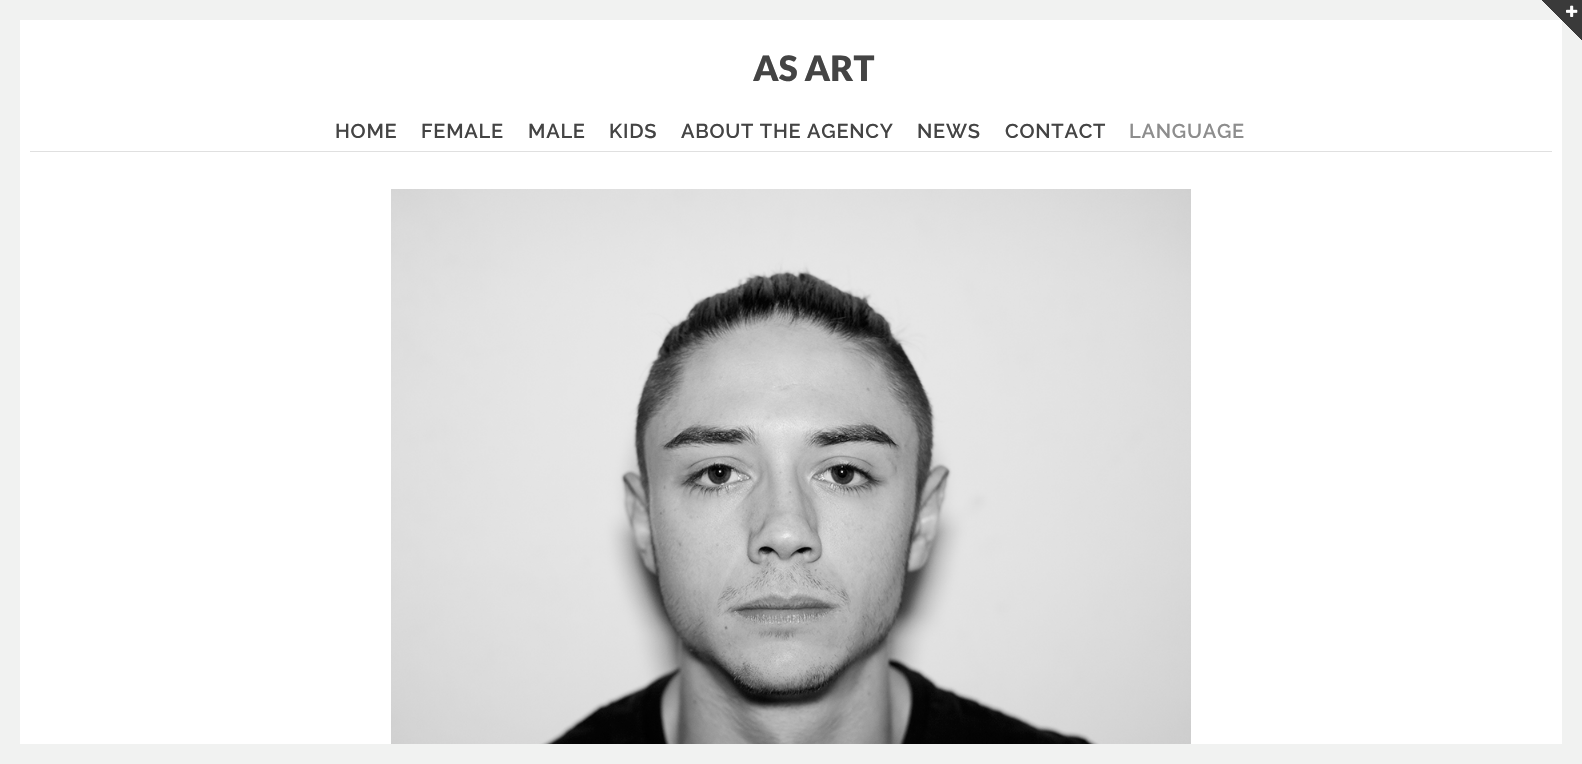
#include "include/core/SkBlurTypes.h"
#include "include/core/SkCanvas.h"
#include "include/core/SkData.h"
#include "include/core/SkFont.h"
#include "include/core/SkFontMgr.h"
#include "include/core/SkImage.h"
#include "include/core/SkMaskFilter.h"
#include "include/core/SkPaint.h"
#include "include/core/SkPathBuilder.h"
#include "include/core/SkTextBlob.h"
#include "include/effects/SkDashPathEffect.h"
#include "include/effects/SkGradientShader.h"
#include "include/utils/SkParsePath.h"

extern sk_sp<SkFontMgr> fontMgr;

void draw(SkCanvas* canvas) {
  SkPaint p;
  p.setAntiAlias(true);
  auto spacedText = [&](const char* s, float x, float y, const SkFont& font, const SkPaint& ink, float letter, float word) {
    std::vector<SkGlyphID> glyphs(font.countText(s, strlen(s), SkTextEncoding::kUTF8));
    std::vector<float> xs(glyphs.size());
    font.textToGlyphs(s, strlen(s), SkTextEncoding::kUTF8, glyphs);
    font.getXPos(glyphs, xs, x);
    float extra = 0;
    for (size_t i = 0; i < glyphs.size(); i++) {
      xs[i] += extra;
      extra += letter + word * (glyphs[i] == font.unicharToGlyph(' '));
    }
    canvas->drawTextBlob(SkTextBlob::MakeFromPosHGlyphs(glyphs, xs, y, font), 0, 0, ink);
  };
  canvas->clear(SkColorSetRGB(241, 242, 241));
  p.setColor(SK_ColorWHITE);
  canvas->drawRect(SkRect::MakeLTRB(20, 20, 1562, 744), p);
  {
    const SkColor colors[] = {SkColorSetRGB(58, 58, 58), SkColorSetARGB(0, 58, 58, 58)};
    const float stops[] = {0.5f, 0.51f};
    const SkPoint ends[] = {{1582, 0}, {1542, 40}};
    p.setShader(SkGradientShader::MakeLinear(ends, colors, stops, 2, SkTileMode::kClamp));
    p.setAlpha(255);
  }
  canvas->drawRect(SkRect::MakeLTRB(1542, 0, 1582, 40), p);
  canvas->drawImageRect(SkImages::DeferredFromEncodedData(SkData::MakeFromFileName("images/1.png")), SkRect::MakeLTRB(1566, 5, 1578, 17), SkSamplingOptions());
  p.setShader(nullptr);
  p.setColor(SkColorSetRGB(224, 224, 224));
  canvas->drawRect(SkRect::MakeLTRB(30, 151, 1552, 152), p);
  canvas->drawImageRect(SkImages::DeferredFromEncodedData(SkData::MakeFromFileName("images/2.png")), SkRect::MakeLTRB(391, 189, 1191, 744), SkSamplingOptions());
  SkFont font1(fontMgr->matchFamilyStyle("Lato", SkFontStyle(900, SkFontStyle::kNormal_Width, SkFontStyle::kUpright_Slant)), 35);
  font1.setSubpixel(true);
  p.setColor(SkColorSetRGB(68, 68, 68));
  canvas->drawString("AS ART", 753, 81, font1, p);
  SkFont font2(fontMgr->matchFamilyStyle("Raleway", SkFontStyle(600, SkFontStyle::kNormal_Width, SkFontStyle::kUpright_Slant)), 20);
  font2.setSubpixel(true);
  spacedText("HOME", 335, 138, font2, p, 0.75f, 0);
  spacedText("FEMALE", 421, 138, font2, p, 0.75f, 0);
  spacedText("MALE", 528, 138, font2, p, 0.75f, 0);
  spacedText("KIDS", 609, 138, font2, p, 0.75f, 0);
  spacedText("ABOUT THE AGENCY", 681, 138, font2, p, 0.75f, 0);
  spacedText("NEWS", 917, 138, font2, p, 0.75f, 0);
  spacedText("CONTACT", 1005, 138, font2, p, 0.75f, 0);
  p.setColor(SkColorSetRGB(141, 141, 141));
  spacedText("LANGUAGE", 1129, 138, font2, p, 0.75f, 0);
}
